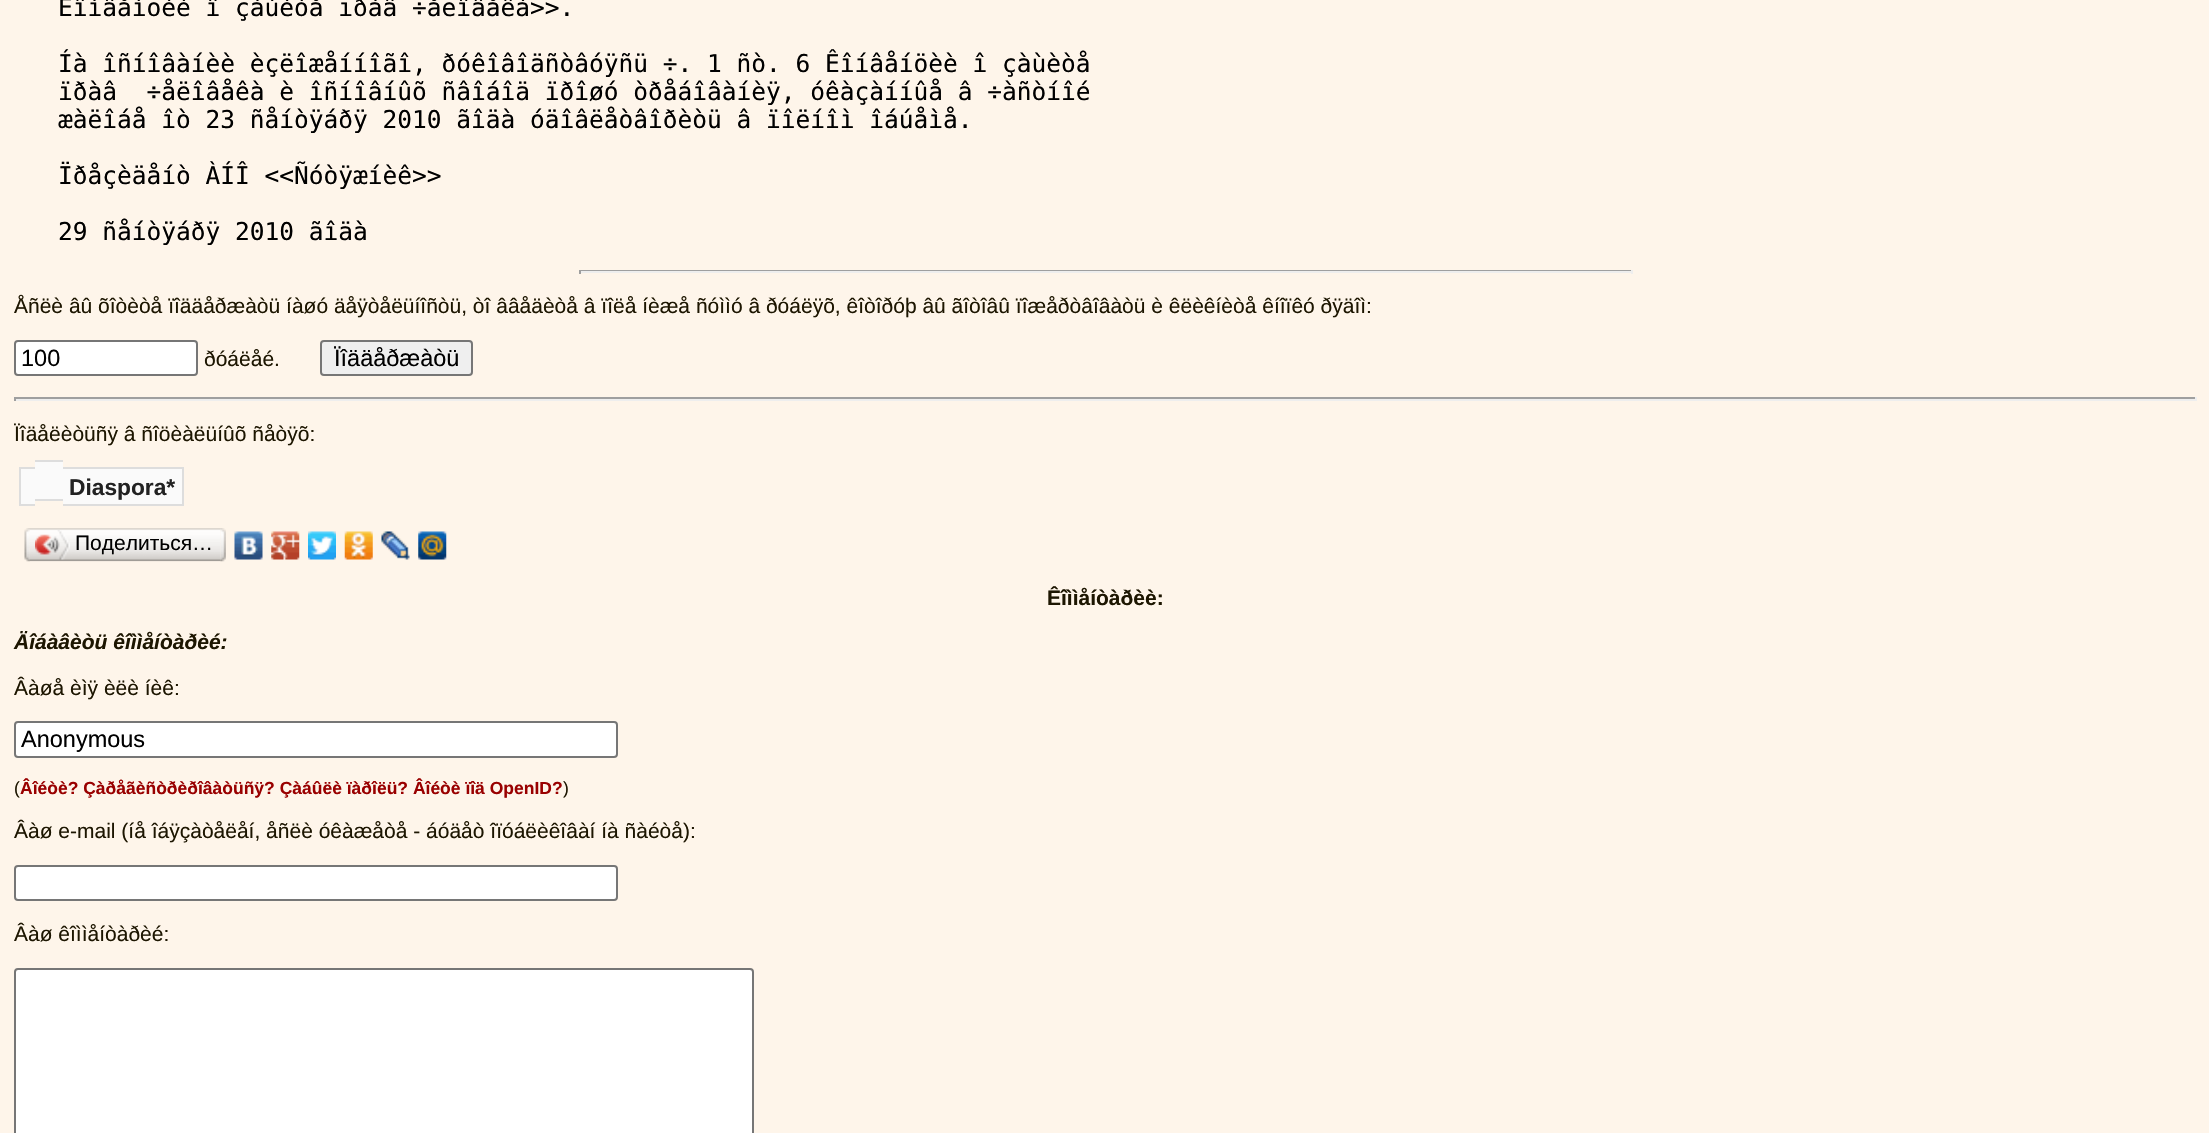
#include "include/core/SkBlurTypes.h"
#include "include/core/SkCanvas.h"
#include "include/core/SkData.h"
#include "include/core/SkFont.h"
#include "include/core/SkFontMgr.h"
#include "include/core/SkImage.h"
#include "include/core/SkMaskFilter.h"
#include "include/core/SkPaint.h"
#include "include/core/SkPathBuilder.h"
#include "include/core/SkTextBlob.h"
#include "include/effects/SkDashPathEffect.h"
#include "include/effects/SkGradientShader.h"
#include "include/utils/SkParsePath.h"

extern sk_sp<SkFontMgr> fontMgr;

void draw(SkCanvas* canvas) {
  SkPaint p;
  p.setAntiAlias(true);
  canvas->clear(SkColorSetRGB(254, 245, 234));
  p.setColor(SkColorSetRGB(159, 159, 159));
  canvas->drawRect(SkRect::MakeLTRB(579, 270, 1633, 271), p);
  p.setColor(SkColorSetRGB(238, 238, 238));
  canvas->drawRect(SkRect::MakeLTRB(1631, 270, 1633, 274), p);
  canvas->drawRect(SkRect::MakeLTRB(579, 271, 1633, 273), p);
  p.setColor(SkColorSetRGB(159, 159, 159));
  canvas->drawRect(SkRect::MakeLTRB(579, 270, 581, 274), p);
  p.setColor(SK_ColorWHITE);
  canvas->drawRoundRect(SkRect::MakeLTRB(15, 341, 197, 375), 3, 3, p);
  p.setStyle(SkPaint::kStroke_Style);
  p.setStrokeWidth(2);
  p.setColor(SkColorSetRGB(118, 118, 118));
  canvas->drawRoundRect(SkRect::MakeLTRB(15, 341, 197, 375), 3, 3, p);
  p.setStyle(SkPaint::kFill_Style);
  p.setColor(SkColorSetRGB(239, 239, 239));
  canvas->drawRoundRect(SkRect::MakeLTRB(321, 341, 472, 375), 3, 3, p);
  p.setStyle(SkPaint::kStroke_Style);
  p.setColor(SkColorSetRGB(118, 118, 118));
  canvas->drawRoundRect(SkRect::MakeLTRB(321, 341, 472, 375), 3, 3, p);
  p.setStyle(SkPaint::kFill_Style);
  p.setColor(SkColorSetRGB(159, 159, 159));
  canvas->drawRect(SkRect::MakeLTRB(14, 397, 2196, 399), p);
  p.setColor(SkColorSetRGB(238, 238, 238));
  canvas->drawRect(SkRect::MakeLTRB(2195, 397, 2197, 401), p);
  canvas->drawRect(SkRect::MakeLTRB(14, 399, 2196, 401), p);
  p.setColor(SkColorSetRGB(159, 159, 159));
  canvas->drawRect(SkRect::MakeLTRB(14, 397, 16, 401), p);
  p.setColor(SkColorSetRGB(250, 250, 250));
  canvas->drawRect(SkRect::MakeLTRB(21, 469, 35, 504), p);
  p.setColor(SkColorSetRGB(221, 221, 221));
  canvas->drawRect(SkRect::MakeLTRB(19, 467, 35, 469), p);
  canvas->drawRect(SkRect::MakeLTRB(19, 504, 35, 506), p);
  canvas->drawRect(SkRect::MakeLTRB(19, 467, 21, 506), p);
  p.setColor(SkColorSetRGB(250, 250, 250));
  canvas->drawRect(SkRect::MakeLTRB(35, 462, 63, 499), p);
  p.setColor(SkColorSetRGB(221, 221, 221));
  canvas->drawRect(SkRect::MakeLTRB(35, 460, 63, 462), p);
  canvas->drawRect(SkRect::MakeLTRB(35, 499, 63, 501), p);
  p.setColor(SkColorSetRGB(250, 250, 250));
  canvas->drawRect(SkRect::MakeLTRB(63, 469, 182, 504), p);
  p.setColor(SkColorSetRGB(221, 221, 221));
  canvas->drawRect(SkRect::MakeLTRB(63, 467, 184, 469), p);
  canvas->drawRect(SkRect::MakeLTRB(182, 467, 184, 506), p);
  canvas->drawRect(SkRect::MakeLTRB(63, 504, 184, 506), p);
  canvas->drawImageRect(SkImages::DeferredFromEncodedData(SkData::MakeFromFileName("images/1.png")), SkRect::MakeLTRB(29, 528, 221, 562), SkSamplingOptions());
  canvas->drawImageRect(SkImages::DeferredFromEncodedData(SkData::MakeFromFileName("images/2.png")), SkRect::MakeLTRB(24, 528, 30, 562), SkSamplingOptions());
  canvas->drawImageRect(SkImages::DeferredFromEncodedData(SkData::MakeFromFileName("images/3.png")), SkRect::MakeLTRB(35, 530, 70, 560), SkSamplingOptions());
  canvas->drawImageRect(SkImages::DeferredFromEncodedData(SkData::MakeFromFileName("images/4.png")), SkRect::MakeLTRB(220, 528, 226, 562), SkSamplingOptions());
  canvas->drawImageRect(SkImages::DeferredFromEncodedData(SkData::MakeFromFileName("images/5.png")), SkRect::MakeLTRB(234, 531, 263, 560), SkSamplingOptions());
  canvas->drawImageRect(SkImages::DeferredFromEncodedData(SkData::MakeFromFileName("images/6.png")), SkRect::MakeLTRB(271, 531, 300, 560), SkSamplingOptions());
  canvas->drawImageRect(SkImages::DeferredFromEncodedData(SkData::MakeFromFileName("images/7.png")), SkRect::MakeLTRB(308, 531, 336, 560), SkSamplingOptions());
  canvas->drawImageRect(SkImages::DeferredFromEncodedData(SkData::MakeFromFileName("images/8.png")), SkRect::MakeLTRB(344, 531, 373, 560), SkSamplingOptions());
  canvas->drawImageRect(SkImages::DeferredFromEncodedData(SkData::MakeFromFileName("images/9.png")), SkRect::MakeLTRB(381, 531, 410, 560), SkSamplingOptions());
  canvas->drawImageRect(SkImages::DeferredFromEncodedData(SkData::MakeFromFileName("images/10.png")), SkRect::MakeLTRB(418, 531, 447, 560), SkSamplingOptions());
  p.setColor(SK_ColorWHITE);
  canvas->drawRoundRect(SkRect::MakeLTRB(15, 722, 617, 757), 3, 3, p);
  p.setStyle(SkPaint::kStroke_Style);
  p.setColor(SkColorSetRGB(118, 118, 118));
  canvas->drawRoundRect(SkRect::MakeLTRB(15, 722, 617, 757), 3, 3, p);
  p.setStyle(SkPaint::kFill_Style);
  p.setColor(SK_ColorWHITE);
  canvas->drawRoundRect(SkRect::MakeLTRB(15, 866, 617, 900), 3, 3, p);
  p.setStyle(SkPaint::kStroke_Style);
  p.setColor(SkColorSetRGB(118, 118, 118));
  canvas->drawRoundRect(SkRect::MakeLTRB(15, 866, 617, 900), 3, 3, p);
  p.setStyle(SkPaint::kFill_Style);
  p.setColor(SK_ColorWHITE);
  canvas->drawRoundRect(SkRect::MakeLTRB(15, 969, 753, 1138), 3, 3, p);
  p.setStyle(SkPaint::kStroke_Style);
  p.setColor(SkColorSetRGB(118, 118, 118));
  canvas->drawRoundRect(SkRect::MakeLTRB(15, 969, 753, 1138), 3, 3, p);
  SkFont font1(fontMgr->matchFamilyStyle("DejaVu Sans Mono", SkFontStyle::Normal()), 24.5f);
  font1.setSubpixel(true);
  p.setStyle(SkPaint::kFill_Style);
  p.setColor(SK_ColorBLACK);
  canvas->drawString("Êîíâåíöèè î çàùèòå ïðàâ ÷åëîâåêà>>.", 58, 16, font1, p);
  canvas->drawString("Íà îñíîâàíèè èçëîæåííîãî, ðóêîâîäñòâóÿñü ÷. 1 ñò. 6 Êîíâåíöèè î çàùèòå", 58, 72, font1, p);
  canvas->drawString("ïðàâ  ÷åëîâåêà è îñíîâíûõ ñâîáîä ïðîøó òðåáîâàíèÿ, óêàçàííûå â ÷àñòíîé", 58, 100, font1, p);
  canvas->drawString("æàëîáå îò 23 ñåíòÿáðÿ 2010 ãîäà óäîâëåòâîðèòü â ïîëíîì îáúåìå.", 58, 128, font1, p);
  canvas->drawString("Ïðåçèäåíò ÀÍÎ <<Ñóòÿæíèê>>", 58, 184, font1, p);
  canvas->drawString("29 ñåíòÿáðÿ 2010 ãîäà", 58, 240, font1, p);
  SkFont font2(fontMgr->matchFamilyStyle("Liberation Sans", SkFontStyle::Normal()), 21);
  font2.setSubpixel(true);
  p.setColor(SkColorSetRGB(29, 22, 1));
  canvas->drawString("Åñëè âû õîòèòå ïîääåðæàòü íàøó äåÿòåëüíîñòü, òî ââåäèòå â ïîëå íèæå ñóììó â ðóáëÿõ, êîòîðóþ âû ãîòîâû ïîæåðòâîâàòü è êëèêíèòå êíîïêó ðÿäîì:", 14, 313, font2, p);
  SkFont font3(fontMgr->matchFamilyStyle("Liberation Sans", SkFontStyle::Normal()), 23.5f);
  font3.setSubpixel(true);
  p.setColor(SK_ColorBLACK);
  canvas->drawString("100", 21, 366, font3, p);
  p.setColor(SkColorSetRGB(29, 22, 1));
  canvas->drawString("ðóáëåé.", 204, 366, font2, p);
  p.setColor(SK_ColorBLACK);
  canvas->drawString("Ïîääåðæàòü", 334, 366, font3, p);
  p.setColor(SkColorSetRGB(29, 22, 1));
  canvas->drawString("Ïîäåëèòüñÿ â ñîöèàëüíûõ ñåòÿõ:", 14, 441, font2, p);
  SkFont font4(fontMgr->matchFamilyStyle("Liberation Sans", SkFontStyle::Bold()), 22.75f);
  font4.setSubpixel(true);
  p.setColor(SkColorSetRGB(34, 34, 34));
  canvas->drawString("Diaspora*", 69, 495, font4, p);
  p.setColor(SK_ColorBLACK);
  canvas->drawString("Поделиться…", 75, 550, font2, p);
  SkFont font5(fontMgr->matchFamilyStyle("Liberation Sans", SkFontStyle::Bold()), 21);
  font5.setSubpixel(true);
  p.setColor(SkColorSetRGB(29, 22, 1));
  canvas->drawString("Êîììåíòàðèè:", 1047, 605, font5, p);
  SkFont font6(fontMgr->matchFamilyStyle("Liberation Sans", SkFontStyle::BoldItalic()), 21);
  font6.setSubpixel(true);
  canvas->drawString("Äîáàâèòü êîììåíòàðèé:", 14, 649, font6, p);
  canvas->drawString("Âàøå èìÿ èëè íèê:", 14, 695, font2, p);
  p.setColor(SK_ColorBLACK);
  canvas->drawString("Anonymous", 21, 747, font3, p);
  SkFont font7(fontMgr->matchFamilyStyle("Liberation Sans", SkFontStyle::Normal()), 17.5f);
  font7.setSubpixel(true);
  p.setColor(SkColorSetRGB(29, 22, 1));
  canvas->drawString("(", 14, 794, font7, p);
  SkFont font8(fontMgr->matchFamilyStyle("Liberation Sans", SkFontStyle::Bold()), 17.5f);
  font8.setSubpixel(true);
  p.setColor(SkColorSetRGB(153, 0, 0));
  canvas->drawString("Âîéòè? Çàðåãèñòðèðîâàòüñÿ? Çàáûëè ïàðîëü? Âîéòè ïîä OpenID?", 20, 794, font8, p);
  p.setColor(SkColorSetRGB(29, 22, 1));
  canvas->drawString(")", 563, 794, font7, p);
  canvas->drawString("Âàø e-mail (íå îáÿçàòåëåí, åñëè óêàæåòå - áóäåò îïóáëèêîâàí íà ñàéòå):", 14, 838, font2, p);
  canvas->drawString("Âàø êîììåíòàðèé:", 14, 941, font2, p);
}
